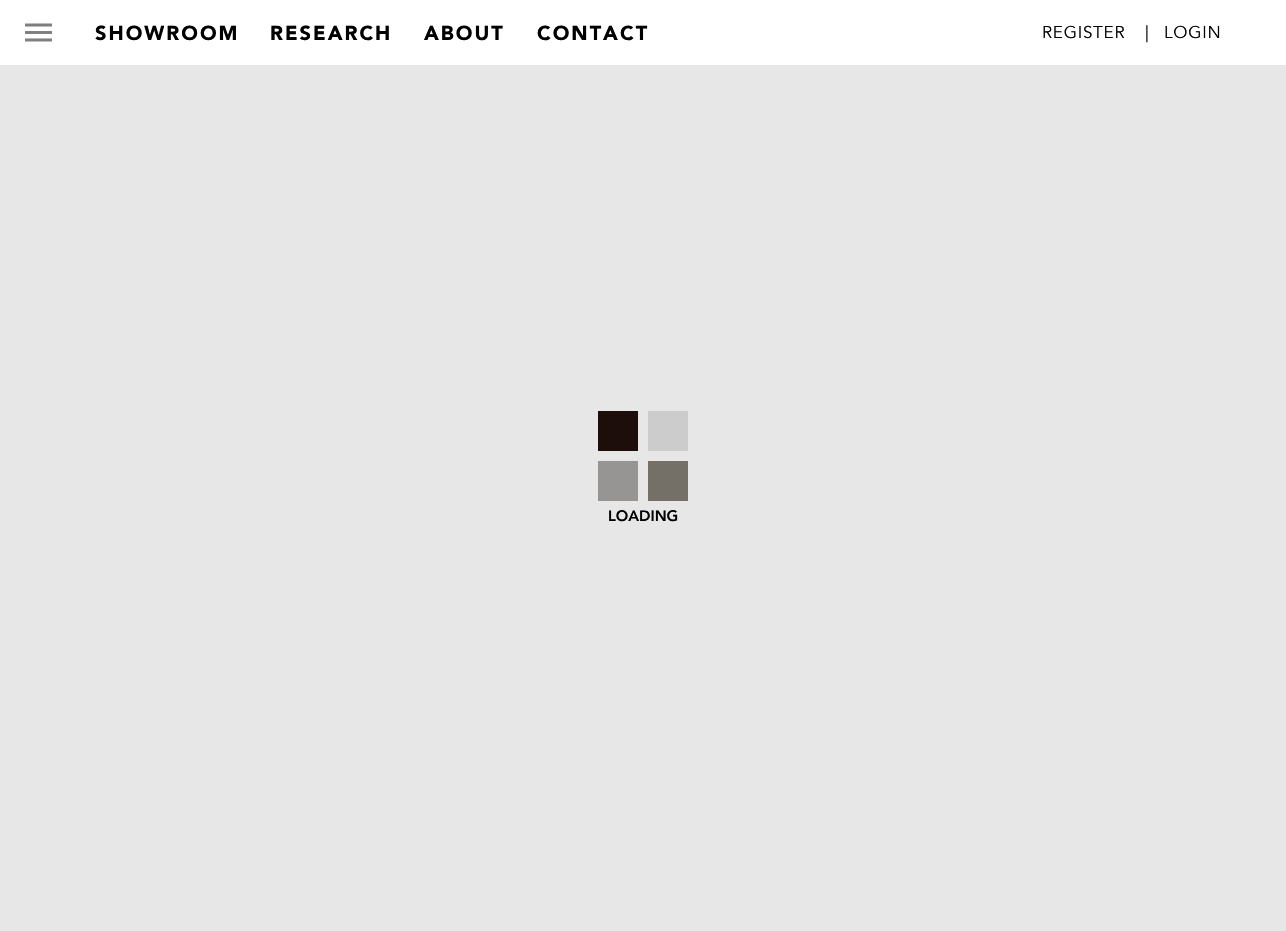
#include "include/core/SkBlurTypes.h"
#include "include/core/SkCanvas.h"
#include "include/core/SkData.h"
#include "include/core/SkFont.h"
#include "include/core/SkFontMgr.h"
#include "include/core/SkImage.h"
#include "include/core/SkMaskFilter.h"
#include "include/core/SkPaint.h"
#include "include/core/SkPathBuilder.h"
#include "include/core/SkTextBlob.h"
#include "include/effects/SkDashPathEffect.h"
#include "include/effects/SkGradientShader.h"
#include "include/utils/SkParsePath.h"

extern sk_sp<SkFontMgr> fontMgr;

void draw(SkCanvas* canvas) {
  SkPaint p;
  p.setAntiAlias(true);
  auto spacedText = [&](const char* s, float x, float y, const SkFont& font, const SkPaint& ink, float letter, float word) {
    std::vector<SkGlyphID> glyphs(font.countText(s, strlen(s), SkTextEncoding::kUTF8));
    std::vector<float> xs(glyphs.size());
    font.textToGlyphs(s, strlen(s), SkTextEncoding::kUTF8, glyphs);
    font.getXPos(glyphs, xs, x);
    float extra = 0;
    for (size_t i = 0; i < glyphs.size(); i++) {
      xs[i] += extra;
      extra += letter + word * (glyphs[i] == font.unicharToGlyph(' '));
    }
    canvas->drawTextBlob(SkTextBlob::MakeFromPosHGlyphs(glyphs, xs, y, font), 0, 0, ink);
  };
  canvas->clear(SkColorSetRGB(231, 231, 231));
  p.setColor(SK_ColorWHITE);
  canvas->drawRect(SkRect::MakeLTRB(0, 0, 1286, 65), p);
  canvas->drawImageRect(SkImages::DeferredFromEncodedData(SkData::MakeFromFileName("images/1.png")), SkRect::MakeLTRB(25, 23, 52, 42), SkSamplingOptions());
  p.setColor(SkColorSetRGB(29, 14, 11));
  canvas->drawRect(SkRect::MakeLTRB(598, 411, 638, 451), p);
  p.setColor(SkColorSetRGB(204, 204, 204));
  canvas->drawRect(SkRect::MakeLTRB(648, 411, 688, 451), p);
  p.setColor(SkColorSetRGB(150, 149, 148));
  canvas->drawRect(SkRect::MakeLTRB(598, 461, 638, 501), p);
  p.setColor(SkColorSetRGB(116, 112, 104));
  canvas->drawRect(SkRect::MakeLTRB(648, 461, 688, 501), p);
  SkFont font1(fontMgr->matchFamilyStyle("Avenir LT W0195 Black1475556", SkFontStyle(900, SkFontStyle::kNormal_Width, SkFontStyle::kUpright_Slant)), 20);
  font1.setSubpixel(true);
  p.setColor(SK_ColorBLACK);
  spacedText("SHOWROOM", 95, 40, font1, p, 2, 0);
  spacedText("RESEARCH", 270, 40, font1, p, 2, 0);
  spacedText("ABOUT", 424, 40, font1, p, 2, 0);
  spacedText("CONTACT", 537, 40, font1, p, 2, 0);
  SkFont font2(fontMgr->matchFamilyStyle("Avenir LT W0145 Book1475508", SkFontStyle::Normal()), 17);
  font2.setSubpixel(true);
  spacedText("REGISTER", 1042, 38, font2, p, 0.75f, 0);
  spacedText("|", 1145, 38, font2, p, 0.75f, 0);
  spacedText("LOGIN", 1164, 38, font2, p, 0.75f, 0);
  SkFont font3(fontMgr->matchFamilyStyle("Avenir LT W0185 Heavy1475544", SkFontStyle(900, SkFontStyle::kNormal_Width, SkFontStyle::kUpright_Slant)), 15);
  font3.setSubpixel(true);
  canvas->drawString("LOADING", 608, 521, font3, p);
}
